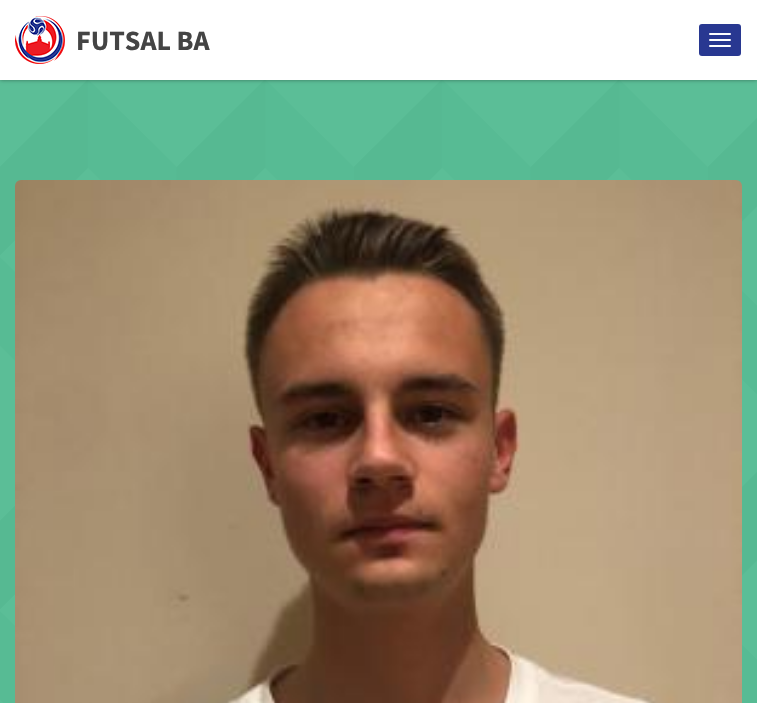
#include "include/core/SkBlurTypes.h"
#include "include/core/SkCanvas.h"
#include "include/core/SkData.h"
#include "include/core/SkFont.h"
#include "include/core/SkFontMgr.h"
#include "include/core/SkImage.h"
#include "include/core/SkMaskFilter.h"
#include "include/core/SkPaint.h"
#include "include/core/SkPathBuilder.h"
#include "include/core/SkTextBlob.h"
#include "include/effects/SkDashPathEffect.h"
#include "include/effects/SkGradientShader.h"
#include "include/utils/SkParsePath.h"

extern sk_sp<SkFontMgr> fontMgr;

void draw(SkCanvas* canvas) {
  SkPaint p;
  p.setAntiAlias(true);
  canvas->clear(SkColorSetRGB(86, 188, 148));
  canvas->drawImageRect(SkImages::DeferredFromEncodedData(SkData::MakeFromFileName("images/2.png")), SkRect::MakeLTRB(0, 80, 757, 703), SkSamplingOptions());
  p.setColor(SkColorSetARGB(102, 0, 0, 0));
  p.setMaskFilter(SkMaskFilter::MakeBlur(kNormal_SkBlurStyle, 2));
  canvas->drawRect(SkRect::MakeLTRB(0, 0, 757, 80), p);
  p.setMaskFilter(nullptr);
  p.setColor(SK_ColorWHITE);
  canvas->drawRect(SkRect::MakeLTRB(0, 0, 757, 80), p);
  canvas->drawImageRect(SkImages::DeferredFromEncodedData(SkData::MakeFromFileName("images/1.png")), SkRect::MakeLTRB(15, 16, 65, 64), SkSamplingOptions());
  p.setColor(SkColorSetRGB(40, 56, 145));
  canvas->drawRoundRect(SkRect::MakeLTRB(699, 24, 741, 56), 3, 3, p);
  p.setColor(SK_ColorWHITE);
  canvas->drawRoundRect(SkRect::MakeLTRB(709, 33, 731, 35), 1, 1, p);
  canvas->drawRoundRect(SkRect::MakeLTRB(709, 39, 731, 41), 1, 1, p);
  canvas->drawRoundRect(SkRect::MakeLTRB(709, 45, 731, 47), 1, 1, p);
  canvas->drawImageRect(SkImages::DeferredFromEncodedData(SkData::MakeFromFileName("images/3.png")), SkRect::MakeLTRB(15, 180, 742, 703), SkSamplingOptions());
  SkFont font1(fontMgr->matchFamilyStyle("Source Sans Pro", SkFontStyle::Bold()), 28);
  font1.setSubpixel(true);
  p.setColor(SkColorSetRGB(68, 68, 68));
  canvas->drawString("FUTSAL BA", 76, 50, font1, p);
}
